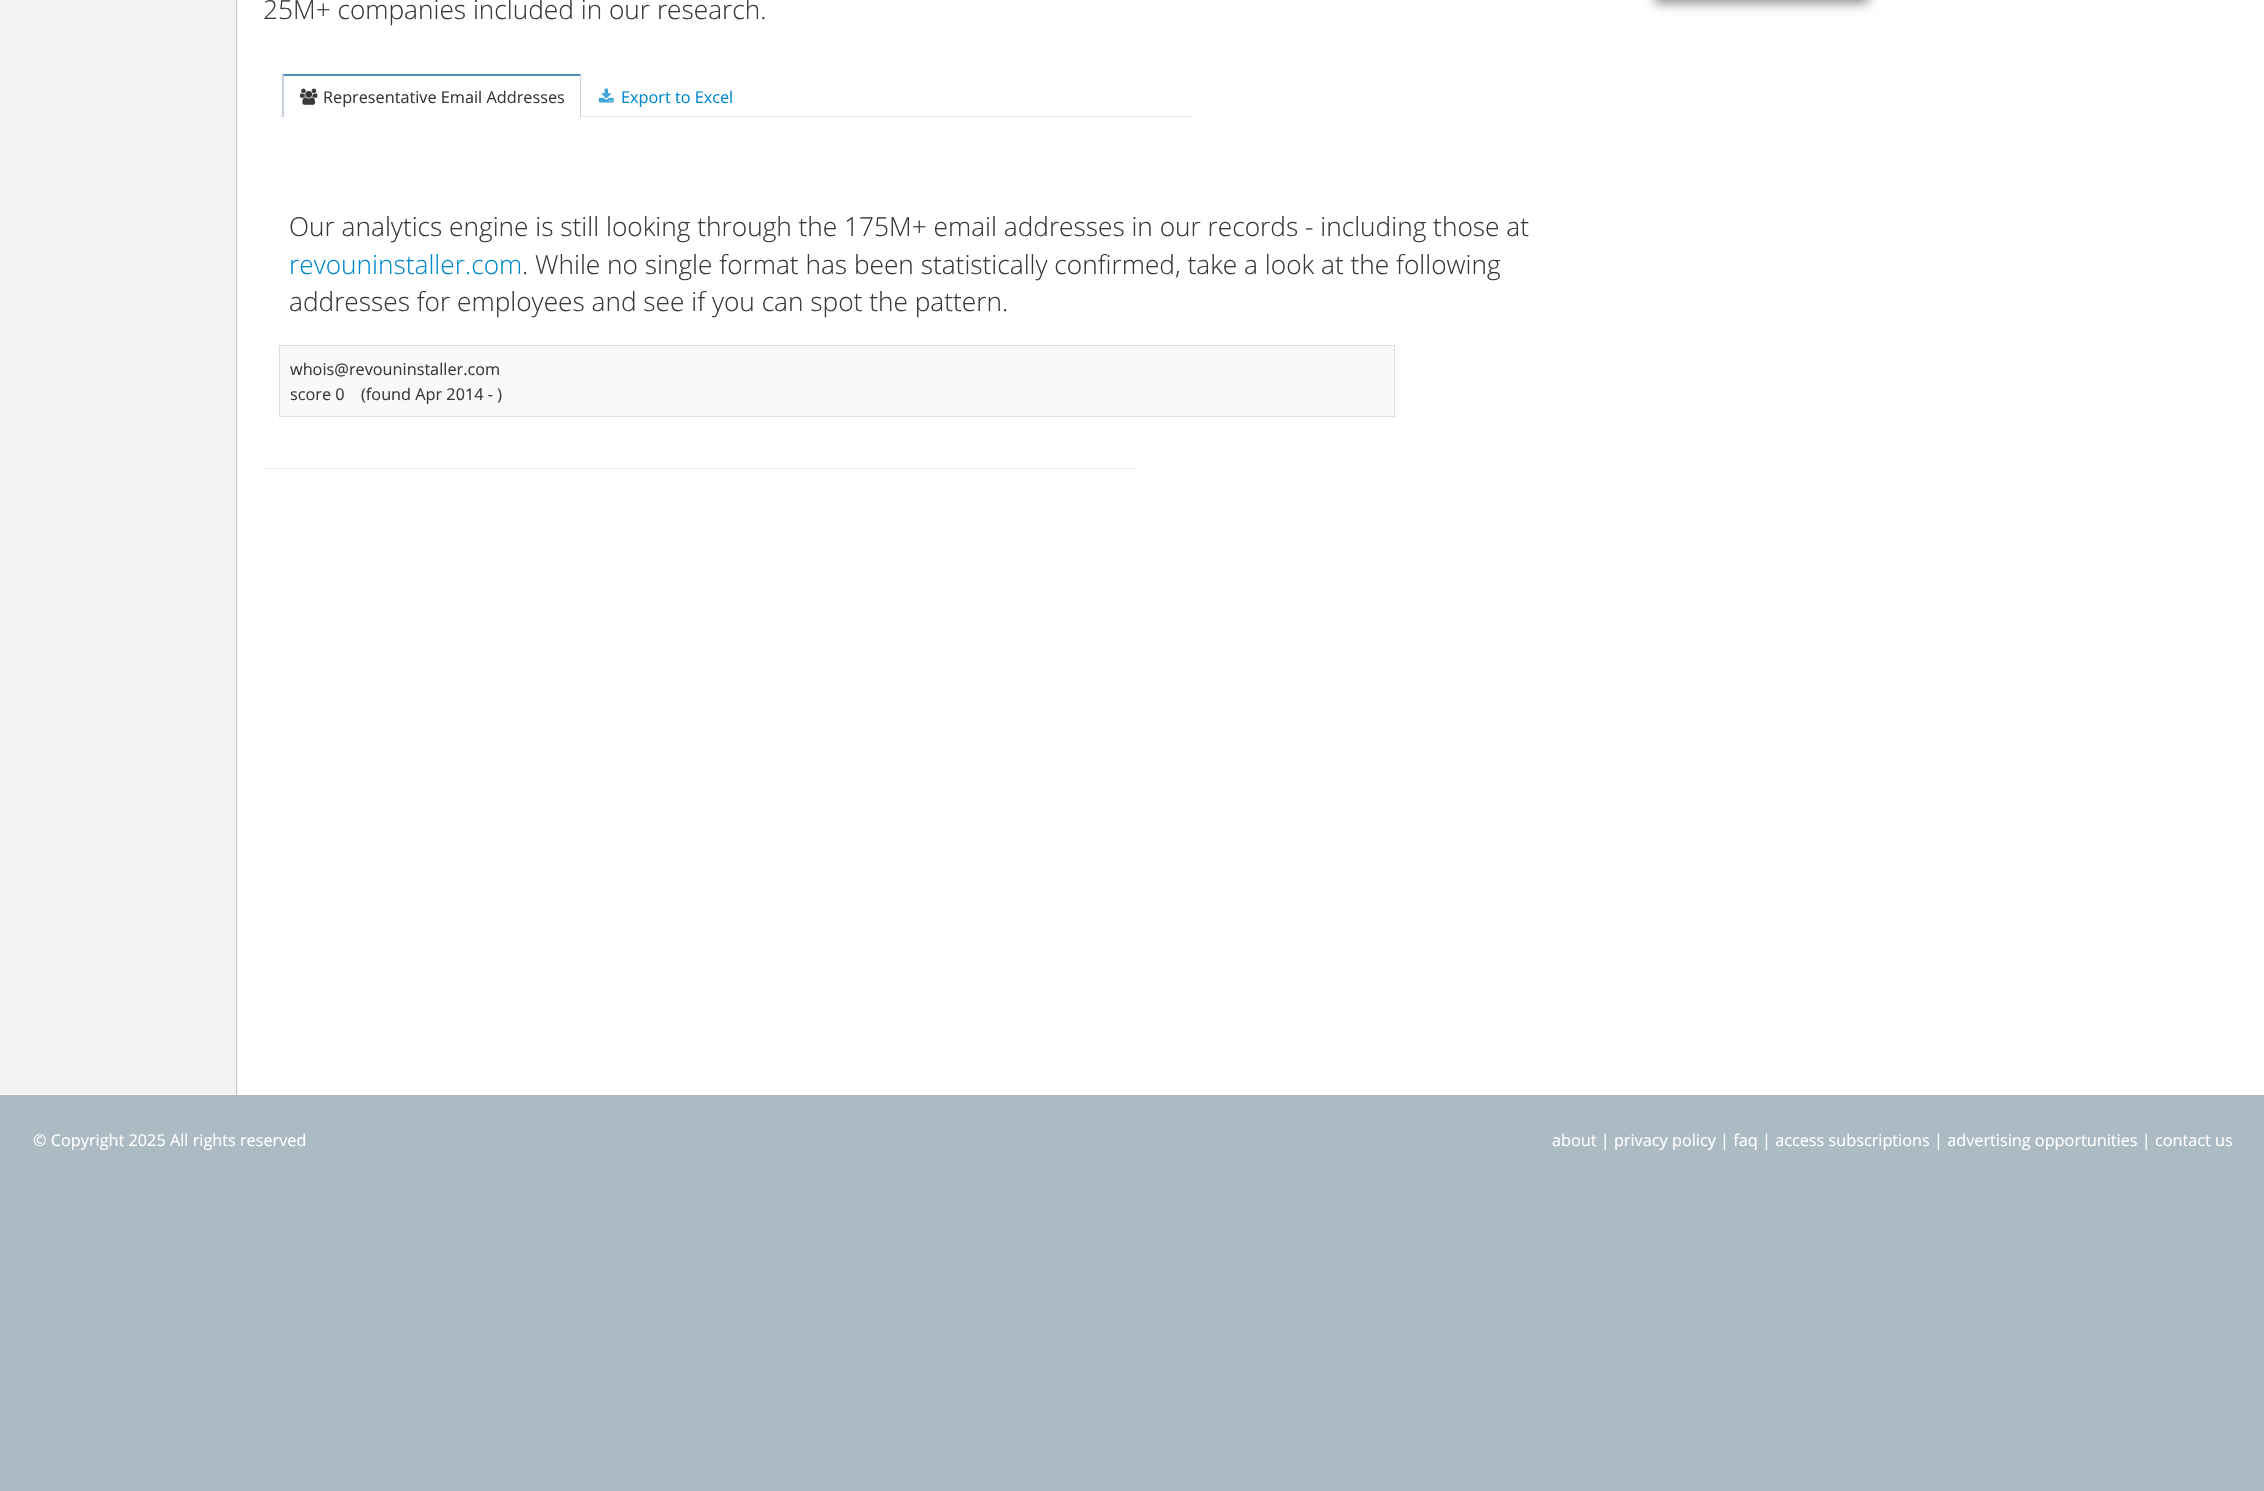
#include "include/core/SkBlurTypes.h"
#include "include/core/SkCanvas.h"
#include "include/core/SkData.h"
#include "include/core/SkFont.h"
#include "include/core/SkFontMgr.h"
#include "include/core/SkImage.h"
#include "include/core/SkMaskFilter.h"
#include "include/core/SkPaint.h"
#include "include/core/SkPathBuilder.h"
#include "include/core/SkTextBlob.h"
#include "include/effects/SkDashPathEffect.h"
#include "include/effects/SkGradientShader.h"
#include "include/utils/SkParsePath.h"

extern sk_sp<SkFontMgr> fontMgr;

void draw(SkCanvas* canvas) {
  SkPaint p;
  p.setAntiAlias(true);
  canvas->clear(SK_ColorWHITE);
  p.setColor(SkColorSetRGB(242, 242, 242));
  canvas->drawRect(SkRect::MakeLTRB(0, 0, 238, 1095), p);
  p.setColor(SkColorSetRGB(204, 204, 204));
  canvas->drawRect(SkRect::MakeLTRB(236, 0, 237, 1095), p);
  p.setColor(SkColorSetRGB(136, 136, 136));
  p.setMaskFilter(SkMaskFilter::MakeBlur(kNormal_SkBlurStyle, 6));
  canvas->drawRect(SkRect::MakeLTRB(1655, -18, 1868, 3), p);
  p.setMaskFilter(nullptr);
  p.setColor(SkColorSetRGB(220, 232, 241));
  canvas->drawRect(SkRect::MakeLTRB(279, 116, 1193, 117), p);
  p.setColor(SK_ColorWHITE);
  canvas->drawRect(SkRect::MakeLTRB(283, 116, 581, 117), p);
  p.setColor(SkColorSetRGB(76, 143, 189));
  canvas->drawPath(SkPathBuilder().moveTo(282, 74).lineTo(581, 74).lineTo(580, 76).lineTo(284, 76).close().detach(), p);
  p.setColor(SkColorSetRGB(197, 208, 220));
  canvas->drawPath(SkPathBuilder().moveTo(581, 74).lineTo(581, 118).lineTo(580, 116).lineTo(580, 76).close().detach(), p);
  canvas->drawPath(SkPathBuilder().moveTo(282, 118).lineTo(282, 74).lineTo(284, 76).lineTo(284, 116).close().detach(), p);
  canvas->drawImageRect(SkImages::DeferredFromEncodedData(SkData::MakeFromFileName("images/1.png")), SkRect::MakeLTRB(300, 88, 318, 105), SkSamplingOptions());
  canvas->drawImageRect(SkImages::DeferredFromEncodedData(SkData::MakeFromFileName("images/2.png")), SkRect::MakeLTRB(598, 88, 614, 103), SkSamplingOptions());
  p.setColor(SkColorSetRGB(221, 221, 221));
  canvas->drawRect(SkRect::MakeLTRB(279, 345, 1395, 346), p);
  canvas->drawRect(SkRect::MakeLTRB(1394, 345, 1395, 418), p);
  canvas->drawRect(SkRect::MakeLTRB(279, 416, 1395, 417), p);
  p.setColor(SkColorSetRGB(249, 249, 249));
  canvas->drawRect(SkRect::MakeLTRB(280, 346, 1394, 416), p);
  p.setColor(SkColorSetRGB(221, 221, 221));
  canvas->drawRect(SkRect::MakeLTRB(279, 346, 280, 416), p);
  p.setColor(SkColorSetRGB(238, 238, 238));
  canvas->drawRect(SkRect::MakeLTRB(263, 468, 1138, 469), p);
  p.setColor(SkColorSetRGB(171, 186, 195));
  canvas->drawRect(SkRect::MakeLTRB(0, 1095, 2264, 1491), p);
  SkFont font1(fontMgr->matchFamilyStyle("Open Sans", SkFontStyle(300, SkFontStyle::kNormal_Width, SkFontStyle::kUpright_Slant)), 26.25f);
  font1.setSubpixel(true);
  p.setColor(SkColorSetRGB(57, 57, 57));
  canvas->drawString("25M+ companies included in our research.", 263, 19, font1, p);
  SkFont font2(fontMgr->matchFamilyStyle("Open Sans", SkFontStyle::Normal()), 16.25f);
  font2.setSubpixel(true);
  canvas->drawString("Representative Email Addresses", 323, 103, font2, p);
  p.setColor(SkColorSetRGB(0, 136, 204));
  canvas->drawString("Export to Excel", 621, 103, font2, p);
  p.setColor(SkColorSetRGB(57, 57, 57));
  canvas->drawString("Our analytics engine is still looking through the 175M+ email addresses in our records - including those at", 289, 236, font1, p);
  p.setColor(SkColorSetRGB(0, 136, 204));
  canvas->drawString("revouninstaller.com", 289, 274, font1, p);
  p.setColor(SkColorSetRGB(57, 57, 57));
  canvas->drawString(". While no single format has been statistically confirmed, take a look at the following", 522, 274, font1, p);
  canvas->drawString("addresses for employees and see if you can spot the pattern.", 289, 311, font1, p);
  canvas->drawString("whois@revouninstaller.com", 290, 375, font2, p);
  canvas->drawString("score 0", 290, 400, font2, p);
  canvas->drawString("(found Apr 2014 - )", 361, 400, font2, p);
  p.setColor(SK_ColorWHITE);
  canvas->drawString("© Copyright 2025 All rights reserved", 33, 1146, font2, p);
  canvas->drawString("about | privacy policy | faq | access subscriptions | advertising opportunities | contact us", 1552, 1146, font2, p);
}
